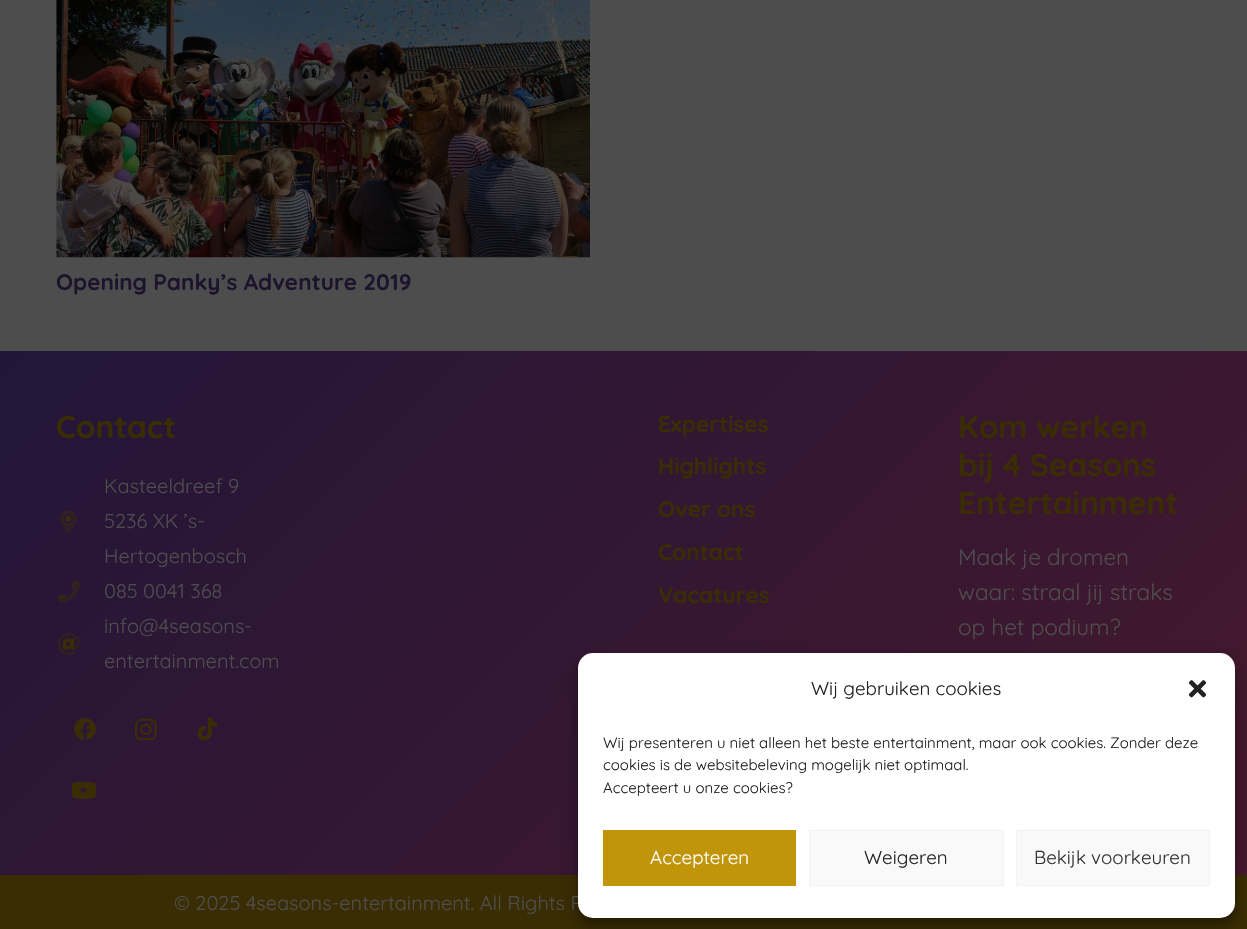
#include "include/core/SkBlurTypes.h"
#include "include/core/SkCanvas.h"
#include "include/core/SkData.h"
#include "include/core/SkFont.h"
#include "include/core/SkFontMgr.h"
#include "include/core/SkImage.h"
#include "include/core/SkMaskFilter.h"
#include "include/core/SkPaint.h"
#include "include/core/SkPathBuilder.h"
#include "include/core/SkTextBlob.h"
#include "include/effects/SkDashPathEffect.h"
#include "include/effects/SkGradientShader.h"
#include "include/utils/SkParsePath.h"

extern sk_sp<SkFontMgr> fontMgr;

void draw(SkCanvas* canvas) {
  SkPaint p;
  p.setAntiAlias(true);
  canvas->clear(SkColorSetRGB(77, 77, 77));
  canvas->drawImageRect(SkImages::DeferredFromEncodedData(SkData::MakeFromFileName("images/1.png")), SkRect::MakeLTRB(56, 0, 590, 258), SkSamplingOptions());
  {
    const SkColor colors[] = {SkColorSetRGB(34, 22, 56), SkColorSetRGB(70, 24, 45)};
    const float stops[] = {0, 1};
    const SkPoint ends[] = {{181, 170}, {1067, 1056}};
    p.setShader(SkGradientShader::MakeLinear(ends, colors, stops, 2, SkTileMode::kClamp));
    p.setAlpha(255);
  }
  canvas->drawRect(SkRect::MakeLTRB(0, 351, 1247, 875), p);
  canvas->drawImageRect(SkImages::DeferredFromEncodedData(SkData::MakeFromFileName("images/3.png")), SkRect::MakeLTRB(65, 516, 72, 522), SkSamplingOptions());
  canvas->drawImageRect(SkImages::DeferredFromEncodedData(SkData::MakeFromFileName("images/2.png")), SkRect::MakeLTRB(60, 510, 77, 533), SkSamplingOptions());
  canvas->drawImageRect(SkImages::DeferredFromEncodedData(SkData::MakeFromFileName("images/4.png")), SkRect::MakeLTRB(57, 580, 77, 600), SkSamplingOptions());
  canvas->drawImageRect(SkImages::DeferredFromEncodedData(SkData::MakeFromFileName("images/5.png")), SkRect::MakeLTRB(57, 580, 80, 603), SkSamplingOptions());
  canvas->drawImageRect(SkImages::DeferredFromEncodedData(SkData::MakeFromFileName("images/7.png")), SkRect::MakeLTRB(62, 638, 75, 650), SkSamplingOptions());
  canvas->drawImageRect(SkImages::DeferredFromEncodedData(SkData::MakeFromFileName("images/6.png")), SkRect::MakeLTRB(57, 633, 80, 655), SkSamplingOptions());
  canvas->drawImageRect(SkImages::DeferredFromEncodedData(SkData::MakeFromFileName("images/8.png")), SkRect::MakeLTRB(74, 718, 96, 740), SkSamplingOptions());
  canvas->drawImageRect(SkImages::DeferredFromEncodedData(SkData::MakeFromFileName("images/9.png")), SkRect::MakeLTRB(135, 718, 157, 741), SkSamplingOptions());
  canvas->drawImageRect(SkImages::DeferredFromEncodedData(SkData::MakeFromFileName("images/10.png")), SkRect::MakeLTRB(197, 717, 218, 741), SkSamplingOptions());
  canvas->drawImageRect(SkImages::DeferredFromEncodedData(SkData::MakeFromFileName("images/11.png")), SkRect::MakeLTRB(71, 781, 96, 799), SkSamplingOptions());
  p.setShader(nullptr);
  p.setColor(SkColorSetRGB(58, 45, 3));
  canvas->drawRect(SkRect::MakeLTRB(0, 875, 1247, 929), p);
  p.setColor(SkColorSetARGB(59, 0, 0, 0));
  p.setMaskFilter(SkMaskFilter::MakeBlur(kNormal_SkBlurStyle, 4));
  canvas->drawRoundRect(SkRect::MakeLTRB(578, 660, 1235, 925), 15, 15, p);
  p.setMaskFilter(nullptr);
  p.setColor(SkColorSetARGB(48, 0, 0, 0));
  p.setMaskFilter(SkMaskFilter::MakeBlur(kNormal_SkBlurStyle, 12.5f));
  canvas->drawRoundRect(SkRect::MakeLTRB(578, 665, 1235, 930), 15, 15, p);
  p.setMaskFilter(nullptr);
  SkFont font1(fontMgr->matchFamilyStyle("Quicksand", SkFontStyle::Bold()), 22.5f);
  font1.setSubpixel(true);
  p.setColor(SkColorSetRGB(27, 20, 44));
  canvas->drawString("Opening Panky’s Adventure 2019", 56, 290, font1, p);
  SkFont font2(fontMgr->matchFamilyStyle("Quicksand", SkFontStyle::Bold()), 31.5f);
  font2.setSubpixel(true);
  p.setColor(SkColorSetRGB(58, 45, 3));
  canvas->drawString("Contact", 56, 438, font2, p);
  SkFont font3(fontMgr->matchFamilyStyle("Quicksand", SkFontStyle::Normal()), 20);
  font3.setSubpixel(true);
  p.setColor(SkColorSetRGB(77, 77, 77));
  canvas->drawString("Kasteeldreef 9", 104, 493, font3, p);
  canvas->drawString("5236 XK ’s-", 104, 528, font3, p);
  canvas->drawString("Hertogenbosch", 104, 563, font3, p);
  canvas->drawString("085 0041 368", 104, 598, font3, p);
  canvas->drawString("info@4seasons-", 104, 633, font3, p);
  canvas->drawString("entertainment.com", 104, 668, font3, p);
  p.setColor(SkColorSetRGB(58, 45, 3));
  canvas->drawString("Expertises", 658, 432, font1, p);
  canvas->drawString("Highlights", 658, 474, font1, p);
  canvas->drawString("Over ons", 658, 517, font1, p);
  canvas->drawString("Contact", 658, 560, font1, p);
  canvas->drawString("Vacatures", 658, 603, font1, p);
  canvas->drawString("Kom werken", 958, 438, font2, p);
  canvas->drawString("bij 4 Seasons", 958, 476, font2, p);
  canvas->drawString("Entertainment", 958, 514, font2, p);
  SkFont font4(fontMgr->matchFamilyStyle("Quicksand", SkFontStyle::Normal()), 22.5f);
  font4.setSubpixel(true);
  p.setColor(SkColorSetRGB(77, 77, 77));
  canvas->drawString("Maak je dromen", 958, 565, font4, p);
  canvas->drawString("waar: straal jij straks", 958, 600, font4, p);
  canvas->drawString("op het podium?", 958, 635, font4, p);
  canvas->drawString("© 2025 4seasons-entertainment. All Rights R", 174, 910, font3, p);
  p.setColor(SK_ColorWHITE);
  canvas->drawRoundRect(SkRect::MakeLTRB(578, 653, 1235, 918), 15, 15, p);
  SkFont font5(fontMgr->matchFamilyStyle("Quicksand", SkFontStyle::Normal()), 18.75f);
  font5.setSubpixel(true);
  p.setColor(SkColorSetRGB(34, 34, 34));
  canvas->drawString("Wij gebruiken cookies", 811, 695, font5, p);
  canvas->drawImageRect(SkImages::DeferredFromEncodedData(SkData::MakeFromFileName("images/12.png")), SkRect::MakeLTRB(1188, 680, 1207, 698), SkSamplingOptions());
  SkFont font6(fontMgr->matchFamilyStyle("Quicksand", SkFontStyle::Normal()), 15);
  font6.setSubpixel(true);
  canvas->drawString("Wij presenteren u niet alleen het beste entertainment, maar ook cookies. Zonder deze", 603, 748, font6, p);
  canvas->drawString("cookies is de websitebeleving mogelijk niet optimaal.", 603, 770, font6, p);
  canvas->drawString("Accepteert u onze cookies?", 603, 793, font6, p);
  p.setColor(SkColorSetRGB(193, 149, 9));
  canvas->drawRect(SkRect::MakeLTRB(603, 830, 796, 886), p);
  p.setColor(SK_ColorWHITE);
  canvas->drawString("Accepteren", 650, 864, font5, p);
  p.setColor(SkColorSetRGB(249, 249, 249));
  canvas->drawRect(SkRect::MakeLTRB(809.5f, 830.5f, 1003.5f, 885.5f), p);
  p.setStyle(SkPaint::kStroke_Style);
  p.setStrokeWidth(1);
  p.setColor(SkColorSetRGB(242, 242, 242));
  canvas->drawRect(SkRect::MakeLTRB(809.5f, 830.5f, 1003.5f, 885.5f), p);
  p.setStyle(SkPaint::kFill_Style);
  p.setColor(SkColorSetRGB(34, 34, 34));
  canvas->drawString("Weigeren", 864, 864, font5, p);
  p.setColor(SkColorSetRGB(249, 249, 249));
  canvas->drawRect(SkRect::MakeLTRB(1016.5f, 830.5f, 1209.5f, 885.5f), p);
  p.setStyle(SkPaint::kStroke_Style);
  p.setColor(SkColorSetRGB(242, 242, 242));
  canvas->drawRect(SkRect::MakeLTRB(1016.5f, 830.5f, 1209.5f, 885.5f), p);
  p.setStyle(SkPaint::kFill_Style);
  p.setColor(SkColorSetRGB(51, 51, 51));
  canvas->drawString("Bekijk voorkeuren", 1034, 864, font5, p);
}
